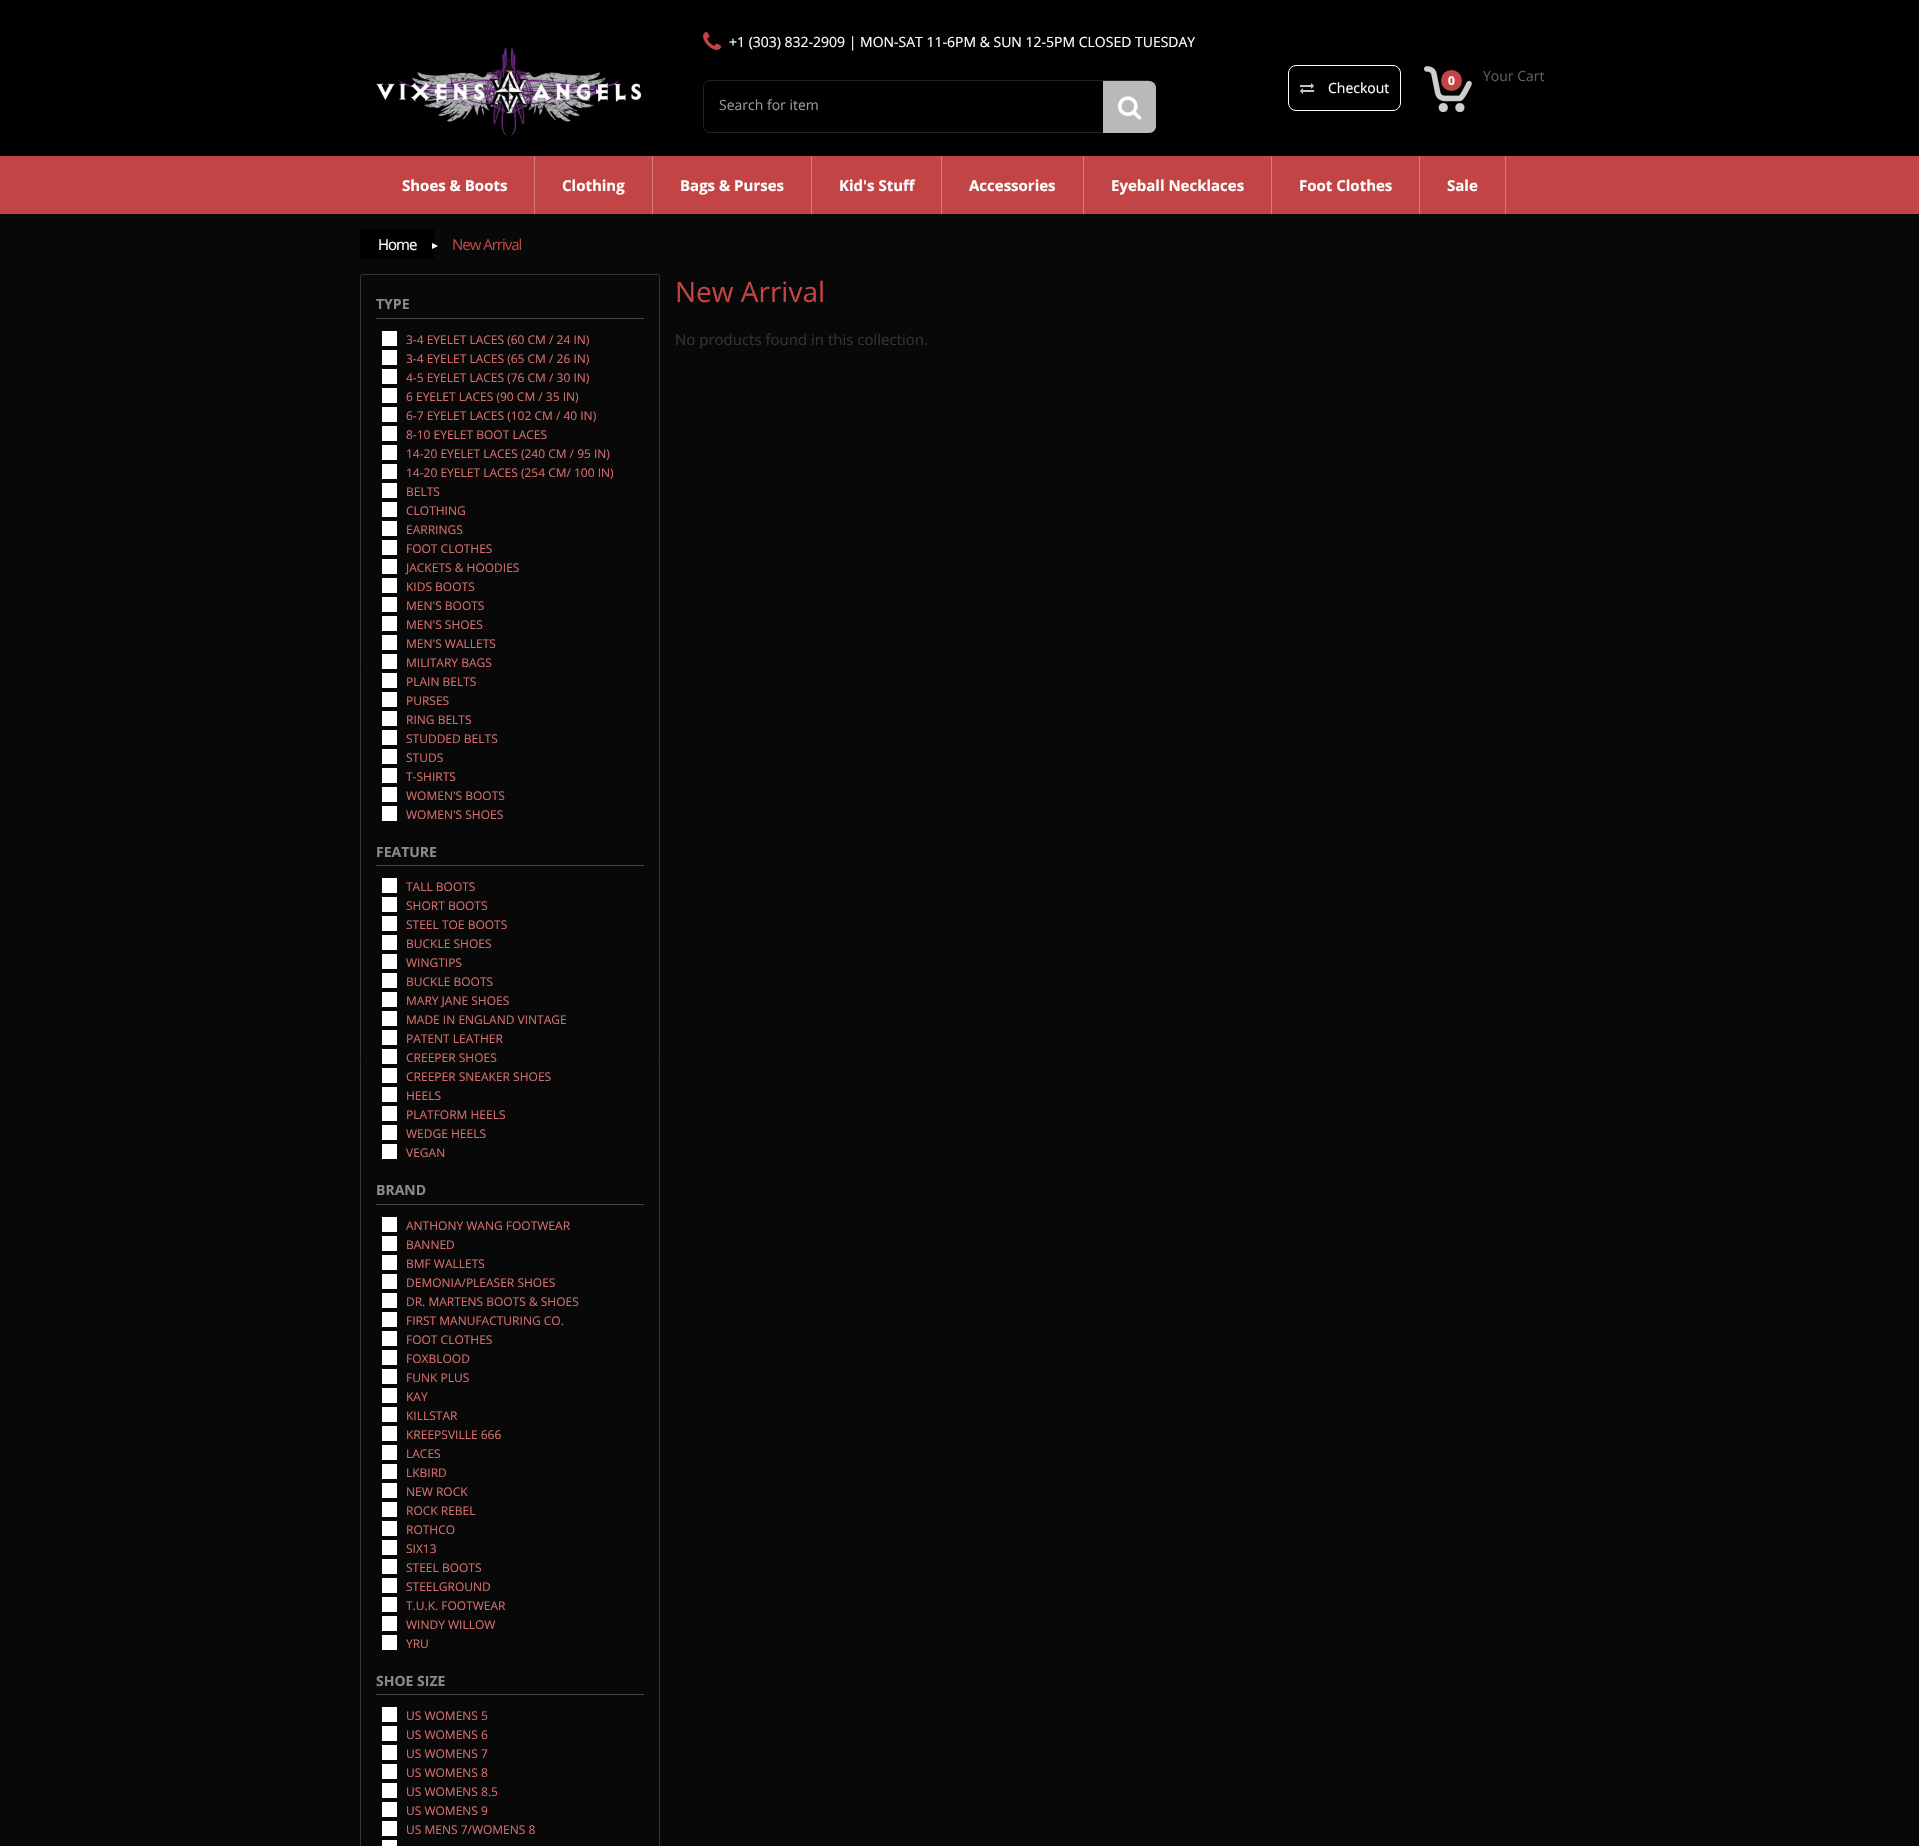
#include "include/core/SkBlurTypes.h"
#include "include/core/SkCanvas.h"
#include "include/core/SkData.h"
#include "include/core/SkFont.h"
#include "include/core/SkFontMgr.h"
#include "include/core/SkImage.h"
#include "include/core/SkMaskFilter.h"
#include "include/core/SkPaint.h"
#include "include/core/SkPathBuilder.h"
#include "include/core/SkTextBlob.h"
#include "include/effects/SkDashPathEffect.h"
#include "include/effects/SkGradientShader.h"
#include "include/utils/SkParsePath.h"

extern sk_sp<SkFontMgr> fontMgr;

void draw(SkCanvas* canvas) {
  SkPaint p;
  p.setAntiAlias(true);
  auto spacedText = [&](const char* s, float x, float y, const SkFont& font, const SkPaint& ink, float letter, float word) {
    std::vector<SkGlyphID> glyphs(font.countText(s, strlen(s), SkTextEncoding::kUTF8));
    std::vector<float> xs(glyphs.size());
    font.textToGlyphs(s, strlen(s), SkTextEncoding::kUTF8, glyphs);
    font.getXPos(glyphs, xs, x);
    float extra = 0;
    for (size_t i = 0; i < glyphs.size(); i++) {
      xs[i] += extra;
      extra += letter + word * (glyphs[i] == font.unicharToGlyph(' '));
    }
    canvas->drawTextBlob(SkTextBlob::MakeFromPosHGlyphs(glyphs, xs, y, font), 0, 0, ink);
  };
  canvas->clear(SkColorSetRGB(8, 8, 8));
  p.setColor(SK_ColorBLACK);
  canvas->drawRect(SkRect::MakeLTRB(0, 0, 1919, 156), p);
  canvas->drawImageRect(SkImages::DeferredFromEncodedData(SkData::MakeFromFileName("images/1.png")), SkRect::MakeLTRB(376, 47, 642, 136), SkSamplingOptions());
  canvas->drawImageRect(SkImages::DeferredFromEncodedData(SkData::MakeFromFileName("images/2.png")), SkRect::MakeLTRB(703, 31, 722, 50), SkSamplingOptions());
  p.setStyle(SkPaint::kStroke_Style);
  p.setStrokeWidth(1);
  p.setColor(SkColorSetRGB(33, 33, 33));
  canvas->drawRoundRect(SkRect::MakeLTRB(703.5f, 80.5f, 1153.5f, 132.5f), 6.5f, 6.5f, p);
  p.setStyle(SkPaint::kFill_Style);
  p.setColor(SkColorSetRGB(185, 185, 185));
  canvas->drawPath(SkPathBuilder().moveTo(1103, 81).lineTo(1149, 81).cubicTo(1153, 81, 1156, 84, 1156, 88).lineTo(1156, 126).cubicTo(1156, 130, 1153, 133, 1149, 133).lineTo(1103, 133).close().detach(), p);
  canvas->drawImageRect(SkImages::DeferredFromEncodedData(SkData::MakeFromFileName("images/3.png")), SkRect::MakeLTRB(1118, 96, 1142, 120), SkSamplingOptions());
  canvas->drawImageRect(SkImages::DeferredFromEncodedData(SkData::MakeFromFileName("images/4.png")), SkRect::MakeLTRB(1424, 66, 1472, 112), SkSamplingOptions());
  p.setColor(SkColorSetRGB(194, 68, 68));
  canvas->drawCircle(1451.5f, 80.5f, 10.5f, p);
  p.setStyle(SkPaint::kStroke_Style);
  p.setColor(SK_ColorWHITE);
  canvas->drawRoundRect(SkRect::MakeLTRB(1288.5f, 65.5f, 1400.5f, 110.5f), 7.5f, 7.5f, p);
  canvas->drawImageRect(SkImages::DeferredFromEncodedData(SkData::MakeFromFileName("images/5.png")), SkRect::MakeLTRB(1300, 83, 1314, 94), SkSamplingOptions());
  p.setStyle(SkPaint::kFill_Style);
  p.setColor(SkColorSetRGB(194, 68, 68));
  canvas->drawRect(SkRect::MakeLTRB(0, 156, 1919, 214), p);
  p.setColor(SkColorSetRGB(212, 124, 124));
  canvas->drawRect(SkRect::MakeLTRB(534, 156, 535, 214), p);
  canvas->drawRect(SkRect::MakeLTRB(652, 156, 653, 214), p);
  canvas->drawRect(SkRect::MakeLTRB(811, 156, 812, 214), p);
  canvas->drawRect(SkRect::MakeLTRB(941, 156, 942, 214), p);
  canvas->drawRect(SkRect::MakeLTRB(1083, 156, 1084, 214), p);
  canvas->drawRect(SkRect::MakeLTRB(1271, 156, 1272, 214), p);
  canvas->drawRect(SkRect::MakeLTRB(1419, 156, 1420, 214), p);
  canvas->drawRect(SkRect::MakeLTRB(1505, 156, 1506, 214), p);
  p.setColor(SK_ColorBLACK);
  canvas->drawRect(SkRect::MakeLTRB(360, 229, 434, 259), p);
  p.setColor(SK_ColorWHITE);
  canvas->drawPath(SkPathBuilder().moveTo(432, 249).lineTo(432, 243).lineTo(438, 246).close().detach(), p);
  p.setStyle(SkPaint::kStroke_Style);
  p.setColor(SkColorSetRGB(51, 51, 51));
  canvas->drawRoundRect(SkRect::MakeLTRB(360.5f, 274.5f, 659.5f, 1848.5f), 1.5f, 1.5f, p);
  p.setStyle(SkPaint::kFill_Style);
  p.setColor(SkColorSetRGB(70, 69, 69));
  canvas->drawRect(SkRect::MakeLTRB(376, 318, 644, 319), p);
  p.setColor(SK_ColorWHITE);
  canvas->drawRect(SkRect::MakeLTRB(382, 331, 397, 346), p);
  canvas->drawRect(SkRect::MakeLTRB(382, 350, 397, 365), p);
  canvas->drawRect(SkRect::MakeLTRB(382, 369, 397, 384), p);
  canvas->drawRect(SkRect::MakeLTRB(382, 388, 397, 403), p);
  canvas->drawRect(SkRect::MakeLTRB(382, 407, 397, 422), p);
  canvas->drawRect(SkRect::MakeLTRB(382, 426, 397, 441), p);
  canvas->drawRect(SkRect::MakeLTRB(382, 445, 397, 460), p);
  canvas->drawRect(SkRect::MakeLTRB(382, 464, 397, 479), p);
  canvas->drawRect(SkRect::MakeLTRB(382, 483, 397, 498), p);
  canvas->drawRect(SkRect::MakeLTRB(382, 502, 397, 517), p);
  canvas->drawRect(SkRect::MakeLTRB(382, 521, 397, 536), p);
  canvas->drawRect(SkRect::MakeLTRB(382, 540, 397, 555), p);
  canvas->drawRect(SkRect::MakeLTRB(382, 559, 397, 574), p);
  canvas->drawRect(SkRect::MakeLTRB(382, 578, 397, 593), p);
  canvas->drawRect(SkRect::MakeLTRB(382, 597, 397, 612), p);
  canvas->drawRect(SkRect::MakeLTRB(382, 616, 397, 631), p);
  canvas->drawRect(SkRect::MakeLTRB(382, 635, 397, 650), p);
  canvas->drawRect(SkRect::MakeLTRB(382, 654, 397, 669), p);
  canvas->drawRect(SkRect::MakeLTRB(382, 673, 397, 688), p);
  canvas->drawRect(SkRect::MakeLTRB(382, 692, 397, 707), p);
  canvas->drawRect(SkRect::MakeLTRB(382, 711, 397, 726), p);
  canvas->drawRect(SkRect::MakeLTRB(382, 730, 397, 745), p);
  canvas->drawRect(SkRect::MakeLTRB(382, 749, 397, 764), p);
  canvas->drawRect(SkRect::MakeLTRB(382, 768, 397, 783), p);
  canvas->drawRect(SkRect::MakeLTRB(382, 787, 397, 802), p);
  canvas->drawRect(SkRect::MakeLTRB(382, 806, 397, 821), p);
  p.setColor(SkColorSetRGB(70, 69, 69));
  canvas->drawRect(SkRect::MakeLTRB(376, 865, 644, 866), p);
  p.setColor(SK_ColorWHITE);
  canvas->drawRect(SkRect::MakeLTRB(382, 878, 397, 893), p);
  canvas->drawRect(SkRect::MakeLTRB(382, 897, 397, 912), p);
  canvas->drawRect(SkRect::MakeLTRB(382, 916, 397, 931), p);
  canvas->drawRect(SkRect::MakeLTRB(382, 935, 397, 950), p);
  canvas->drawRect(SkRect::MakeLTRB(382, 954, 397, 969), p);
  canvas->drawRect(SkRect::MakeLTRB(382, 973, 397, 988), p);
  canvas->drawRect(SkRect::MakeLTRB(382, 992, 397, 1007), p);
  canvas->drawRect(SkRect::MakeLTRB(382, 1011, 397, 1026), p);
  canvas->drawRect(SkRect::MakeLTRB(382, 1030, 397, 1045), p);
  canvas->drawRect(SkRect::MakeLTRB(382, 1049, 397, 1064), p);
  canvas->drawRect(SkRect::MakeLTRB(382, 1068, 397, 1083), p);
  canvas->drawRect(SkRect::MakeLTRB(382, 1087, 397, 1102), p);
  canvas->drawRect(SkRect::MakeLTRB(382, 1106, 397, 1121), p);
  canvas->drawRect(SkRect::MakeLTRB(382, 1125, 397, 1140), p);
  canvas->drawRect(SkRect::MakeLTRB(382, 1144, 397, 1159), p);
  p.setColor(SkColorSetRGB(70, 69, 69));
  canvas->drawRect(SkRect::MakeLTRB(376, 1204, 644, 1205), p);
  p.setColor(SK_ColorWHITE);
  canvas->drawRect(SkRect::MakeLTRB(382, 1217, 397, 1232), p);
  canvas->drawRect(SkRect::MakeLTRB(382, 1236, 397, 1251), p);
  canvas->drawRect(SkRect::MakeLTRB(382, 1255, 397, 1270), p);
  canvas->drawRect(SkRect::MakeLTRB(382, 1274, 397, 1289), p);
  canvas->drawRect(SkRect::MakeLTRB(382, 1293, 397, 1308), p);
  canvas->drawRect(SkRect::MakeLTRB(382, 1312, 397, 1327), p);
  canvas->drawRect(SkRect::MakeLTRB(382, 1331, 397, 1346), p);
  canvas->drawRect(SkRect::MakeLTRB(382, 1350, 397, 1365), p);
  canvas->drawRect(SkRect::MakeLTRB(382, 1369, 397, 1384), p);
  canvas->drawRect(SkRect::MakeLTRB(382, 1388, 397, 1403), p);
  canvas->drawRect(SkRect::MakeLTRB(382, 1407, 397, 1422), p);
  canvas->drawRect(SkRect::MakeLTRB(382, 1426, 397, 1441), p);
  canvas->drawRect(SkRect::MakeLTRB(382, 1445, 397, 1460), p);
  canvas->drawRect(SkRect::MakeLTRB(382, 1464, 397, 1479), p);
  canvas->drawRect(SkRect::MakeLTRB(382, 1483, 397, 1498), p);
  canvas->drawRect(SkRect::MakeLTRB(382, 1502, 397, 1517), p);
  canvas->drawRect(SkRect::MakeLTRB(382, 1521, 397, 1536), p);
  canvas->drawRect(SkRect::MakeLTRB(382, 1540, 397, 1555), p);
  canvas->drawRect(SkRect::MakeLTRB(382, 1559, 397, 1574), p);
  canvas->drawRect(SkRect::MakeLTRB(382, 1578, 397, 1593), p);
  canvas->drawRect(SkRect::MakeLTRB(382, 1597, 397, 1612), p);
  canvas->drawRect(SkRect::MakeLTRB(382, 1616, 397, 1631), p);
  canvas->drawRect(SkRect::MakeLTRB(382, 1635, 397, 1650), p);
  p.setColor(SkColorSetRGB(70, 69, 69));
  canvas->drawRect(SkRect::MakeLTRB(376, 1694, 644, 1695), p);
  p.setColor(SK_ColorWHITE);
  canvas->drawRect(SkRect::MakeLTRB(382, 1707, 397, 1722), p);
  canvas->drawRect(SkRect::MakeLTRB(382, 1726, 397, 1741), p);
  canvas->drawRect(SkRect::MakeLTRB(382, 1745, 397, 1760), p);
  canvas->drawRect(SkRect::MakeLTRB(382, 1764, 397, 1779), p);
  canvas->drawRect(SkRect::MakeLTRB(382, 1783, 397, 1798), p);
  canvas->drawRect(SkRect::MakeLTRB(382, 1802, 397, 1817), p);
  canvas->drawRect(SkRect::MakeLTRB(382, 1821, 397, 1836), p);
  canvas->drawRect(SkRect::MakeLTRB(382, 1840, 397, 1846), p);
  SkFont font1(fontMgr->matchFamilyStyle("Open Sans", SkFontStyle::Normal()), 14);
  font1.setSubpixel(true);
  canvas->drawString("+1 (303) 832-2909 | MON-SAT 11-6PM & SUN 12-5PM CLOSED TUESDAY", 729, 47, font1, p);
  p.setColor(SkColorSetRGB(153, 153, 153));
  canvas->drawString("Search for item", 719, 110, font1, p);
  SkFont font2(fontMgr->matchFamilyStyle("Open Sans", SkFontStyle::Bold()), 12);
  font2.setSubpixel(true);
  p.setColor(SK_ColorWHITE);
  canvas->drawString("0", 1448, 85, font2, p);
  p.setColor(SkColorSetRGB(93, 93, 93));
  canvas->drawString("Your Cart", 1483, 81, font1, p);
  p.setColor(SK_ColorWHITE);
  canvas->drawString("Checkout", 1328, 93, font1, p);
  SkFont font3(fontMgr->matchFamilyStyle("Open Sans", SkFontStyle::Bold()), 15);
  font3.setSubpixel(true);
  canvas->drawString("Shoes & Boots", 402, 191, font3, p);
  canvas->drawString("Clothing", 562, 191, font3, p);
  canvas->drawString("Bags & Purses", 680, 191, font3, p);
  canvas->drawString("Kid's Stuff", 839, 191, font3, p);
  canvas->drawString("Accessories", 969, 191, font3, p);
  canvas->drawString("Eyeball Necklaces", 1111, 191, font3, p);
  canvas->drawString("Foot Clothes", 1299, 191, font3, p);
  canvas->drawString("Sale", 1447, 191, font3, p);
  SkFont font4(fontMgr->matchFamilyStyle("Open Sans", SkFontStyle::Normal()), 15);
  font4.setSubpixel(true);
  spacedText("Home", 378, 250, font4, p, -1, 0);
  p.setColor(SkColorSetRGB(194, 68, 68));
  spacedText("New Arrival", 452, 250, font4, p, -1, 0);
  SkFont font5(fontMgr->matchFamilyStyle("Open Sans", SkFontStyle::Bold()), 14);
  font5.setSubpixel(true);
  p.setColor(SkColorSetRGB(138, 138, 138));
  canvas->drawString("TYPE", 376, 309, font5, p);
  SkFont font6(fontMgr->matchFamilyStyle("Open Sans", SkFontStyle::Normal()), 12);
  font6.setSubpixel(true);
  p.setColor(SkColorSetRGB(212, 109, 109));
  canvas->drawString("3-4 EYELET LACES (60 CM / 24 IN)", 406, 344, font6, p);
  canvas->drawString("3-4 EYELET LACES (65 CM / 26 IN)", 406, 363, font6, p);
  canvas->drawString("4-5 EYELET LACES (76 CM / 30 IN)", 406, 382, font6, p);
  canvas->drawString("6 EYELET LACES (90 CM / 35 IN)", 406, 401, font6, p);
  canvas->drawString("6-7 EYELET LACES (102 CM / 40 IN)", 406, 420, font6, p);
  canvas->drawString("8-10 EYELET BOOT LACES", 406, 439, font6, p);
  canvas->drawString("14-20 EYELET LACES (240 CM / 95 IN)", 406, 458, font6, p);
  canvas->drawString("14-20 EYELET LACES (254 CM/ 100 IN)", 406, 477, font6, p);
  canvas->drawString("BELTS", 406, 496, font6, p);
  canvas->drawString("CLOTHING", 406, 515, font6, p);
  canvas->drawString("EARRINGS", 406, 534, font6, p);
  canvas->drawString("FOOT CLOTHES", 406, 553, font6, p);
  canvas->drawString("JACKETS & HOODIES", 406, 572, font6, p);
  canvas->drawString("KIDS BOOTS", 406, 591, font6, p);
  canvas->drawString("MEN'S BOOTS", 406, 610, font6, p);
  canvas->drawString("MEN'S SHOES", 406, 629, font6, p);
  canvas->drawString("MEN'S WALLETS", 406, 648, font6, p);
  canvas->drawString("MILITARY BAGS", 406, 667, font6, p);
  canvas->drawString("PLAIN BELTS", 406, 686, font6, p);
  canvas->drawString("PURSES", 406, 705, font6, p);
  canvas->drawString("RING BELTS", 406, 724, font6, p);
  canvas->drawString("STUDDED BELTS", 406, 743, font6, p);
  canvas->drawString("STUDS", 406, 762, font6, p);
  canvas->drawString("T-SHIRTS", 406, 781, font6, p);
  canvas->drawString("WOMEN'S BOOTS", 406, 800, font6, p);
  canvas->drawString("WOMEN'S SHOES", 406, 819, font6, p);
  p.setColor(SkColorSetRGB(138, 138, 138));
  canvas->drawString("FEATURE", 376, 857, font5, p);
  p.setColor(SkColorSetRGB(212, 109, 109));
  canvas->drawString("TALL BOOTS", 406, 891, font6, p);
  canvas->drawString("SHORT BOOTS", 406, 910, font6, p);
  canvas->drawString("STEEL TOE BOOTS", 406, 929, font6, p);
  canvas->drawString("BUCKLE SHOES", 406, 948, font6, p);
  canvas->drawString("WINGTIPS", 406, 967, font6, p);
  canvas->drawString("BUCKLE BOOTS", 406, 986, font6, p);
  canvas->drawString("MARY JANE SHOES", 406, 1005, font6, p);
  canvas->drawString("MADE IN ENGLAND VINTAGE", 406, 1024, font6, p);
  canvas->drawString("PATENT LEATHER", 406, 1043, font6, p);
  canvas->drawString("CREEPER SHOES", 406, 1062, font6, p);
  canvas->drawString("CREEPER SNEAKER SHOES", 406, 1081, font6, p);
  canvas->drawString("HEELS", 406, 1100, font6, p);
  canvas->drawString("PLATFORM HEELS", 406, 1119, font6, p);
  canvas->drawString("WEDGE HEELS", 406, 1138, font6, p);
  canvas->drawString("VEGAN", 406, 1157, font6, p);
  p.setColor(SkColorSetRGB(138, 138, 138));
  canvas->drawString("BRAND", 376, 1195, font5, p);
  p.setColor(SkColorSetRGB(212, 109, 109));
  canvas->drawString("ANTHONY WANG FOOTWEAR", 406, 1230, font6, p);
  canvas->drawString("BANNED", 406, 1249, font6, p);
  canvas->drawString("BMF WALLETS", 406, 1268, font6, p);
  canvas->drawString("DEMONIA/PLEASER SHOES", 406, 1287, font6, p);
  canvas->drawString("DR. MARTENS BOOTS & SHOES", 406, 1306, font6, p);
  canvas->drawString("FIRST MANUFACTURING CO.", 406, 1325, font6, p);
  canvas->drawString("FOOT CLOTHES", 406, 1344, font6, p);
  canvas->drawString("FOXBLOOD", 406, 1363, font6, p);
  canvas->drawString("FUNK PLUS", 406, 1382, font6, p);
  canvas->drawString("KAY", 406, 1401, font6, p);
  canvas->drawString("KILLSTAR", 406, 1420, font6, p);
  canvas->drawString("KREEPSVILLE 666", 406, 1439, font6, p);
  canvas->drawString("LACES", 406, 1458, font6, p);
  canvas->drawString("LKBIRD", 406, 1477, font6, p);
  canvas->drawString("NEW ROCK", 406, 1496, font6, p);
  canvas->drawString("ROCK REBEL", 406, 1515, font6, p);
  canvas->drawString("ROTHCO", 406, 1534, font6, p);
  canvas->drawString("SIX13", 406, 1553, font6, p);
  canvas->drawString("STEEL BOOTS", 406, 1572, font6, p);
  canvas->drawString("STEELGROUND", 406, 1591, font6, p);
  canvas->drawString("T.U.K. FOOTWEAR", 406, 1610, font6, p);
  canvas->drawString("WINDY WILLOW", 406, 1629, font6, p);
  canvas->drawString("YRU", 406, 1648, font6, p);
  p.setColor(SkColorSetRGB(138, 138, 138));
  canvas->drawString("SHOE SIZE", 376, 1686, font5, p);
  p.setColor(SkColorSetRGB(212, 109, 109));
  canvas->drawString("US WOMENS 5", 406, 1720, font6, p);
  canvas->drawString("US WOMENS 6", 406, 1739, font6, p);
  canvas->drawString("US WOMENS 7", 406, 1758, font6, p);
  canvas->drawString("US WOMENS 8", 406, 1777, font6, p);
  canvas->drawString("US WOMENS 8.5", 406, 1796, font6, p);
  canvas->drawString("US WOMENS 9", 406, 1815, font6, p);
  canvas->drawString("US MENS 7/WOMENS 8", 406, 1834, font6, p);
  SkFont font7(fontMgr->matchFamilyStyle("Open Sans", SkFontStyle::Normal()), 28);
  font7.setSubpixel(true);
  p.setColor(SkColorSetRGB(194, 68, 68));
  canvas->drawString("New Arrival", 675, 302, font7, p);
  p.setColor(SkColorSetRGB(51, 51, 51));
  canvas->drawString("No products found in this collection.", 675, 345, font4, p);
}
